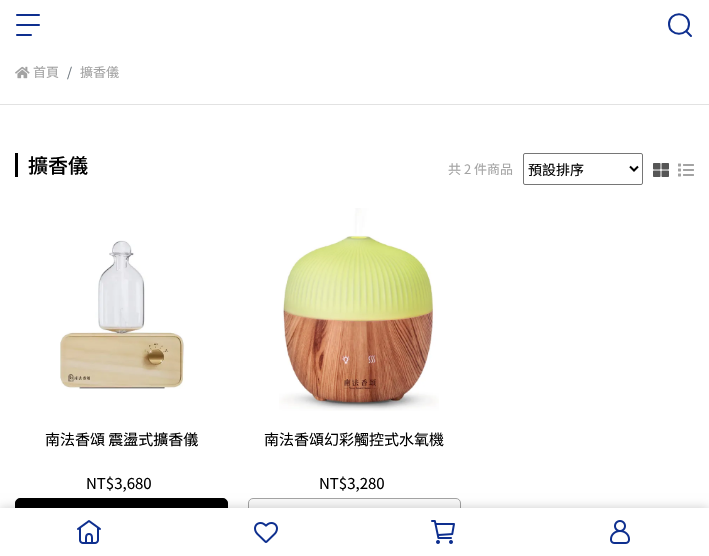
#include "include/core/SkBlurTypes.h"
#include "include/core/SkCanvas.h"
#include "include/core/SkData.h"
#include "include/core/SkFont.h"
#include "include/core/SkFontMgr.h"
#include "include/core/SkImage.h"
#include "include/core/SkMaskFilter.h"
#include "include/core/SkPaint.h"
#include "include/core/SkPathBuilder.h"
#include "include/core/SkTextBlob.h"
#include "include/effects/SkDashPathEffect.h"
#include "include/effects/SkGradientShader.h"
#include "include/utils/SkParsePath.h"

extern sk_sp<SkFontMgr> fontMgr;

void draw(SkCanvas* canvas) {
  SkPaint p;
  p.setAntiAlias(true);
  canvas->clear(SK_ColorWHITE);
  canvas->drawImageRect(SkImages::DeferredFromEncodedData(SkData::MakeFromFileName("images/1.png")), SkRect::MakeLTRB(16, 14, 40, 36), SkSamplingOptions());
  p.setStyle(SkPaint::kStroke_Style);
  p.setStrokeWidth(2);
  p.setStrokeCap(SkPaint::kRound_Cap);
  p.setStrokeJoin(SkPaint::kRound_Join);
  p.setColor(SkColorSetRGB(14, 47, 143));
  canvas->drawPath(SkPathBuilder().moveTo(689, 24).cubicTo(689, 37, 669, 37, 669, 24).cubicTo(669, 11, 689, 11, 689, 24).close().moveTo(687, 32).lineTo(691, 36).detach(), p);
  p.setStyle(SkPaint::kFill_Style);
  p.setColor(SK_ColorBLACK);
  canvas->drawRoundRect(SkRect::MakeLTRB(15.5f, 498.5f, 227.5f, 532.5f), 4.5f, 4.5f, p);
  p.setStyle(SkPaint::kStroke_Style);
  p.setStrokeWidth(1);
  p.setStrokeCap(SkPaint::kButt_Cap);
  p.setStrokeJoin(SkPaint::kMiter_Join);
  canvas->drawRoundRect(SkRect::MakeLTRB(15.5f, 498.5f, 227.5f, 532.5f), 4.5f, 4.5f, p);
  p.setStyle(SkPaint::kFill_Style);
  p.setColor(SkColorSetRGB(249, 249, 249));
  canvas->drawRoundRect(SkRect::MakeLTRB(248.5f, 498.5f, 460.5f, 532.5f), 4.5f, 4.5f, p);
  p.setStyle(SkPaint::kStroke_Style);
  p.setColor(SkColorSetRGB(163, 163, 163));
  canvas->drawRoundRect(SkRect::MakeLTRB(248.5f, 498.5f, 460.5f, 532.5f), 4.5f, 4.5f, p);
  p.setStyle(SkPaint::kFill_Style);
  p.setColor(SkColorSetARGB(51, 0, 0, 0));
  p.setMaskFilter(SkMaskFilter::MakeBlur(kNormal_SkBlurStyle, 5));
  canvas->drawRect(SkRect::MakeLTRB(0, 508, 709, 556), p);
  p.setMaskFilter(nullptr);
  p.setColor(SK_ColorWHITE);
  canvas->drawRect(SkRect::MakeLTRB(0, 508, 709, 556), p);
  canvas->drawImageRect(SkImages::DeferredFromEncodedData(SkData::MakeFromFileName("images/2.png")), SkRect::MakeLTRB(77, 520, 101, 544), SkSamplingOptions());
  canvas->drawImageRect(SkImages::DeferredFromEncodedData(SkData::MakeFromFileName("images/3.png")), SkRect::MakeLTRB(254, 522, 278, 543), SkSamplingOptions());
  canvas->drawImageRect(SkImages::DeferredFromEncodedData(SkData::MakeFromFileName("images/4.png")), SkRect::MakeLTRB(431, 520, 455, 544), SkSamplingOptions());
  canvas->drawImageRect(SkImages::DeferredFromEncodedData(SkData::MakeFromFileName("images/5.png")), SkRect::MakeLTRB(610, 520, 630, 544), SkSamplingOptions());
  p.setColor(SkColorSetRGB(226, 226, 226));
  canvas->drawRect(SkRect::MakeLTRB(0, 104, 709, 105), p);
  canvas->drawImageRect(SkImages::DeferredFromEncodedData(SkData::MakeFromFileName("images/6.png")), SkRect::MakeLTRB(15, 66, 30, 79), SkSamplingOptions());
  p.setColor(SK_ColorBLACK);
  canvas->drawRect(SkRect::MakeLTRB(15, 153, 18, 177), p);
  p.setStyle(SkPaint::kStroke_Style);
  p.setColor(SkColorSetRGB(118, 118, 118));
  canvas->drawRoundRect(SkRect::MakeLTRB(523.5f, 153.5f, 642.5f, 184.5f), 1.5f, 1.5f, p);
  p.setStrokeWidth(2);
  p.setColor(SK_ColorBLACK);
  canvas->drawPath(SkPathBuilder().moveTo(630, 166.5f).lineTo(634, 170.5f).lineTo(638, 166.5f).detach(), p);
  canvas->drawImageRect(SkImages::DeferredFromEncodedData(SkData::MakeFromFileName("images/7.png")), SkRect::MakeLTRB(653, 163, 669, 177), SkSamplingOptions());
  canvas->drawImageRect(SkImages::DeferredFromEncodedData(SkData::MakeFromFileName("images/8.png")), SkRect::MakeLTRB(678, 163, 694, 177), SkSamplingOptions());
  canvas->drawImageRect(SkImages::DeferredFromEncodedData(SkData::MakeFromFileName("images/9.png")), SkRect::MakeLTRB(60, 240, 185, 389), SkSamplingOptions());
  canvas->drawImageRect(SkImages::DeferredFromEncodedData(SkData::MakeFromFileName("images/10.png")), SkRect::MakeLTRB(279, 208, 439, 411), SkSamplingOptions());
  SkFont font1(fontMgr->matchFamilyStyle("Noto Sans TC", SkFontStyle::Normal()), 13);
  font1.setSubpixel(true);
  p.setStyle(SkPaint::kFill_Style);
  p.setColor(SkColorSetRGB(163, 163, 163));
  canvas->drawString("首頁", 33, 77, font1, p);
  p.setColor(SkColorSetRGB(108, 117, 125));
  canvas->drawString("/", 67, 77, font1, p);
  p.setColor(SkColorSetRGB(163, 163, 163));
  canvas->drawString("擴香儀", 80, 77, font1, p);
  SkFont font2(fontMgr->matchFamilyStyle("Noto Sans TC", SkFontStyle(500, SkFontStyle::kNormal_Width, SkFontStyle::kUpright_Slant)), 20);
  font2.setSubpixel(true);
  p.setColor(SK_ColorBLACK);
  canvas->drawString("擴香儀", 28, 173, font2, p);
  p.setColor(SkColorSetRGB(163, 163, 163));
  canvas->drawString("共 2 件商品", 448, 174, font1, p);
  SkFont font3(fontMgr->matchFamilyStyle("Noto Sans TC", SkFontStyle::Normal()), 14);
  font3.setSubpixel(true);
  p.setColor(SK_ColorBLACK);
  canvas->drawString("預設排序", 528, 175, font3, p);
  SkFont font4(fontMgr->matchFamilyStyle("Noto Sans TC", SkFontStyle::Normal()), 15);
  font4.setSubpixel(true);
  canvas->drawString("南法香頌 震盪式擴香儀", 45, 445, font4, p);
  canvas->drawString("NT$3,680", 86, 489, font4, p);
  canvas->drawString("南法香頌幻彩觸控式水氧機", 264, 445, font4, p);
  canvas->drawString("NT$3,280", 319, 489, font4, p);
}
